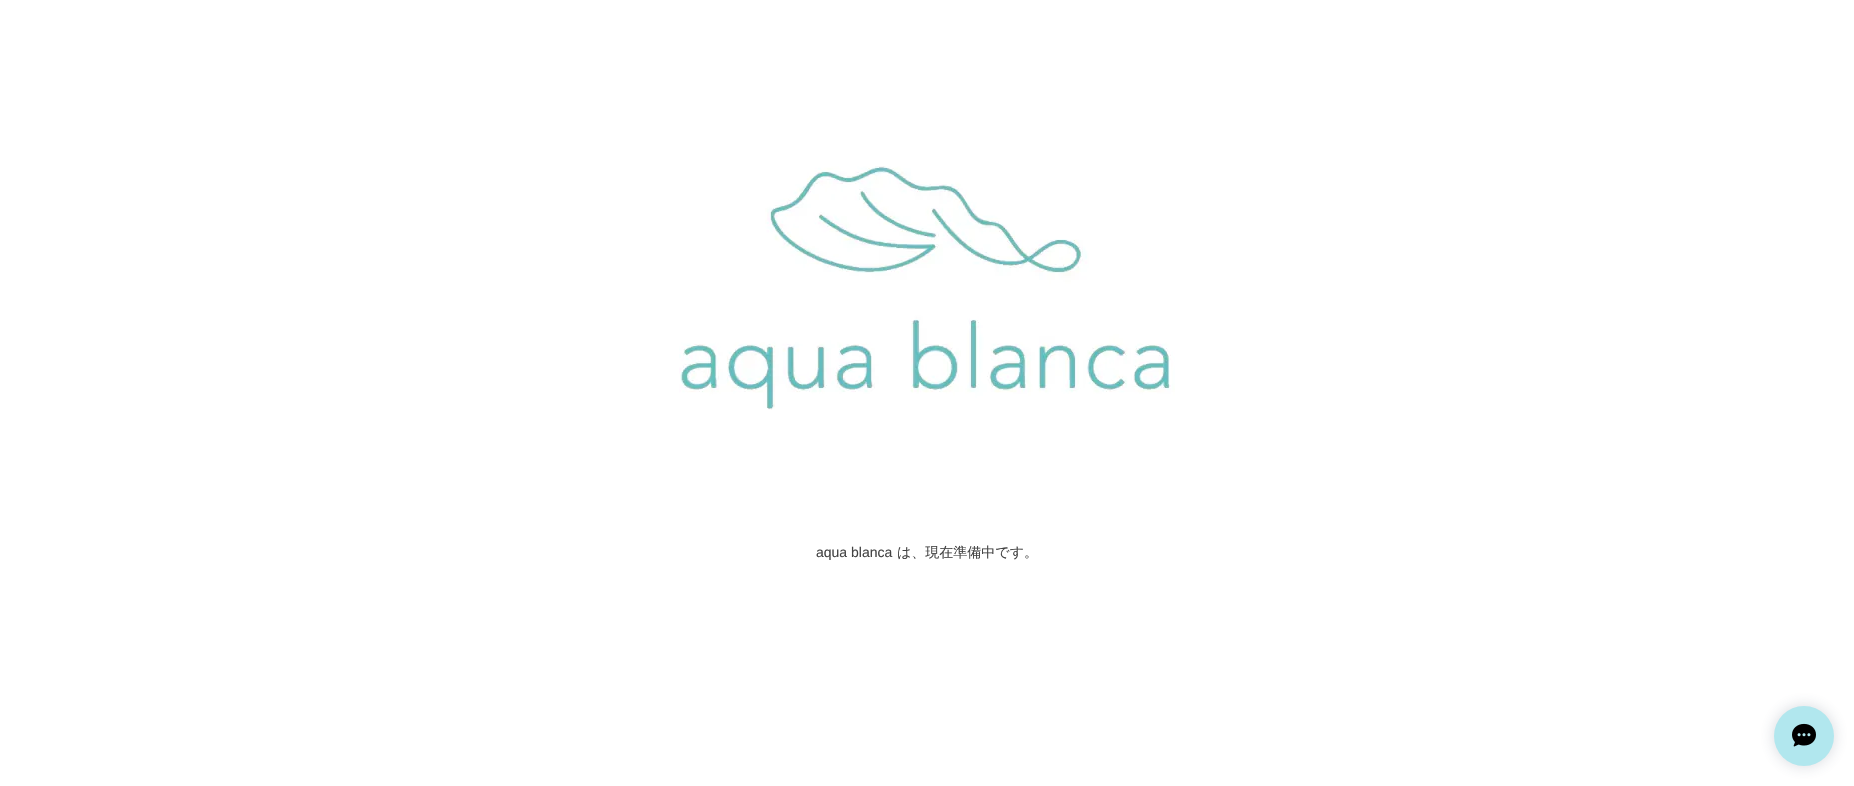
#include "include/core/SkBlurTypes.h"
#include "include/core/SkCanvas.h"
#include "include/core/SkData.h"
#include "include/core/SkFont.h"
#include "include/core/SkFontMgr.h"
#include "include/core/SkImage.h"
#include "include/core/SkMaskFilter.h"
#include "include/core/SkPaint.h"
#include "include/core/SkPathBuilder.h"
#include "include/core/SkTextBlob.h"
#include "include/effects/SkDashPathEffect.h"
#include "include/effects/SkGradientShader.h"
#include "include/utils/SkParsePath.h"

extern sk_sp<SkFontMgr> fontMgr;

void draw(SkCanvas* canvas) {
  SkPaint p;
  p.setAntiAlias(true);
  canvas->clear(SK_ColorWHITE);
  canvas->drawImageRect(SkImages::DeferredFromEncodedData(SkData::MakeFromFileName("images/1.png")), SkRect::MakeLTRB(679, 166, 1175, 410), SkSamplingOptions());
  p.setColor(SkColorSetARGB(51, 51, 66, 88));
  p.setMaskFilter(SkMaskFilter::MakeBlur(kNormal_SkBlurStyle, 7.5f));
  canvas->drawRoundRect(SkRect::MakeLTRB(1774, 706, 1834, 766), 30, 30, p);
  p.setMaskFilter(nullptr);
  p.setColor(SkColorSetRGB(177, 231, 238));
  canvas->drawCircle(1804, 736, 30, p);
  canvas->drawImageRect(SkImages::DeferredFromEncodedData(SkData::MakeFromFileName("images/2.png")), SkRect::MakeLTRB(1792, 723, 1816, 747), SkSamplingOptions());
  SkFont font1(fontMgr->matchFamilyStyle("Liberation Sans", SkFontStyle::Normal()), 14);
  font1.setSubpixel(true);
  p.setColor(SkColorSetRGB(67, 67, 67));
  canvas->drawString("aqua blanca", 816, 557, font1, p);
  SkFont font2(fontMgr->matchFamilyStyle("WenQuanYi Zen Hei", SkFontStyle(500, SkFontStyle::kNormal_Width, SkFontStyle::kUpright_Slant)), 14);
  font2.setSubpixel(true);
  canvas->drawString("は、現在準備中です。", 897, 557, font2, p);
}
